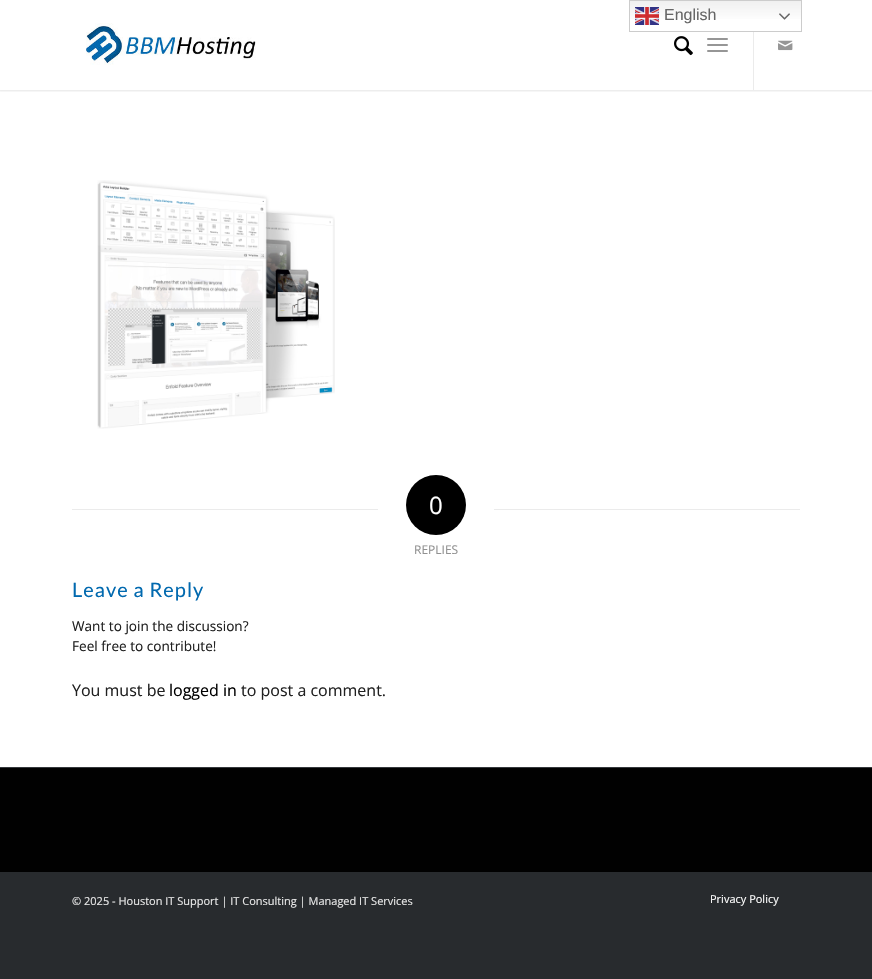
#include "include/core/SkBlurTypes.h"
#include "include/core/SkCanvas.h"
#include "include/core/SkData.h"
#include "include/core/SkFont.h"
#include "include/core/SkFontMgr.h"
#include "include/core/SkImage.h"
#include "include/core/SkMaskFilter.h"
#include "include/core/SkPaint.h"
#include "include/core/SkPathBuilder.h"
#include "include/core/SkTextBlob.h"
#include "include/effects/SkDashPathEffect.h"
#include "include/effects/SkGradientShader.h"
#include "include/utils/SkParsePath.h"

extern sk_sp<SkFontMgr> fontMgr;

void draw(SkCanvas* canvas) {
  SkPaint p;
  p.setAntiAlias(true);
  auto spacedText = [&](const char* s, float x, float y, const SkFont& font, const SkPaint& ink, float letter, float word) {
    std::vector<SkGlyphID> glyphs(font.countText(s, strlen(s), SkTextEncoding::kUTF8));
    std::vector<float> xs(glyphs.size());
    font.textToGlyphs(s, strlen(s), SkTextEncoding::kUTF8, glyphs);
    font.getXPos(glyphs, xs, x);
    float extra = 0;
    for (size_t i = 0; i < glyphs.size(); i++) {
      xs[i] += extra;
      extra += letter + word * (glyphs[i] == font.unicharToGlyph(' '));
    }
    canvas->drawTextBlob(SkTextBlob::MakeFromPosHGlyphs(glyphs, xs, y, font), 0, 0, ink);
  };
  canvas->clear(SkColorSetRGB(40, 43, 46));
  p.setColor(SK_ColorWHITE);
  canvas->drawRect(SkRect::MakeLTRB(0, 0, 872, 767), p);
  canvas->save();
  canvas->clipRect(SkRect::MakeLTRB(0, 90, 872, 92));
  p.setColor(SkColorSetARGB(26, 0, 0, 0));
  p.setMaskFilter(SkMaskFilter::MakeBlur(kNormal_SkBlurStyle, 1));
  canvas->drawRect(SkRect::MakeLTRB(-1, -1, 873, 91), p);
  p.setMaskFilter(nullptr);
  canvas->restore();
  {
    const SkColor colors[] = {SkColorSetRGB(239, 239, 239), SK_ColorWHITE};
    const float stops[] = {0, 0.7f};
    const SkPoint ends[] = {{716, 0}, {716, 32}};
    p.setShader(SkGradientShader::MakeLinear(ends, colors, stops, 2, SkTileMode::kClamp));
    p.setAlpha(255);
  }
  canvas->drawRect(SkRect::MakeLTRB(630, 1, 801, 19), p);
  p.setStyle(SkPaint::kStroke_Style);
  p.setStrokeWidth(1);
  p.setShader(nullptr);
  p.setColor(SkColorSetRGB(204, 204, 204));
  canvas->drawRect(SkRect::MakeLTRB(629.5f, 0.5f, 801.5f, 31.5f), p);
  canvas->drawImageRect(SkImages::DeferredFromEncodedData(SkData::MakeFromFileName("images/1.png")), SkRect::MakeLTRB(635, 7, 659, 25), SkSamplingOptions());
  canvas->drawImageRect(SkImages::DeferredFromEncodedData(SkData::MakeFromFileName("images/2.png")), SkRect::MakeLTRB(779, 13, 790, 20), SkSamplingOptions());
  canvas->drawImageRect(SkImages::DeferredFromEncodedData(SkData::MakeFromFileName("images/3.png")), SkRect::MakeLTRB(86, 23, 256, 65), SkSamplingOptions());
  p.setStyle(SkPaint::kFill_Style);
  p.setColor(SkColorSetRGB(235, 235, 235));
  canvas->drawRect(SkRect::MakeLTRB(753, 32, 754, 90), p);
  canvas->drawImageRect(SkImages::DeferredFromEncodedData(SkData::MakeFromFileName("images/4.png")), SkRect::MakeLTRB(674, 36, 693, 56), SkSamplingOptions());
  p.setColor(SkColorSetRGB(150, 150, 150));
  canvas->drawRoundRect(SkRect::MakeLTRB(707, 44, 728, 46), 1, 1, p);
  canvas->drawRoundRect(SkRect::MakeLTRB(707, 38, 728, 40), 1, 1, p);
  canvas->drawRoundRect(SkRect::MakeLTRB(707, 50, 728, 52), 1, 1, p);
  canvas->drawImageRect(SkImages::DeferredFromEncodedData(SkData::MakeFromFileName("images/5.png")), SkRect::MakeLTRB(778, 40, 793, 51), SkSamplingOptions());
  canvas->drawImageRect(SkImages::DeferredFromEncodedData(SkData::MakeFromFileName("images/6.png")), SkRect::MakeLTRB(97, 180, 335, 429), SkSamplingOptions());
  p.setColor(SkColorSetRGB(235, 235, 235));
  canvas->drawRect(SkRect::MakeLTRB(72, 509, 378, 510), p);
  p.setColor(SK_ColorBLACK);
  canvas->drawCircle(436, 505, 30, p);
  p.setColor(SkColorSetRGB(235, 235, 235));
  canvas->drawRect(SkRect::MakeLTRB(494, 509, 800, 510), p);
  p.setColor(SkColorSetRGB(1, 1, 1));
  canvas->drawRect(SkRect::MakeLTRB(0, 768, 872, 872), p);
  p.setColor(SkColorSetRGB(53, 56, 60));
  canvas->drawRect(SkRect::MakeLTRB(0, 767, 872, 768), p);
  SkFont font1(fontMgr->matchFamilyStyle("Liberation Sans", SkFontStyle::Normal()), 16);
  font1.setSubpixel(true);
  p.setColor(SkColorSetRGB(102, 102, 102));
  canvas->drawString("English", 664, 20, font1, p);
  SkFont font2(fontMgr->matchFamilyStyle("Open Sans", SkFontStyle::Normal()), 24);
  font2.setSubpixel(true);
  p.setColor(SK_ColorWHITE);
  canvas->drawString("0", 429, 514, font2, p);
  SkFont font3(fontMgr->matchFamilyStyle("Open Sans", SkFontStyle::Normal()), 12);
  font3.setSubpixel(true);
  p.setColor(SkColorSetRGB(145, 145, 145));
  canvas->drawString("REPLIES", 414, 554, font3, p);
  SkFont font4(fontMgr->matchFamilyStyle("Lato", SkFontStyle::Normal()), 20);
  font4.setSubpixel(true);
  p.setColor(SkColorSetRGB(1, 105, 175));
  spacedText("Leave a Reply", 72, 597, font4, p, 1, 0);
  SkFont font5(fontMgr->matchFamilyStyle("Open Sans", SkFontStyle::Normal()), 13.6f);
  font5.setSubpixel(true);
  p.setColor(SkColorSetRGB(33, 33, 33));
  canvas->drawString("Want to join the discussion?", 72, 631, font5, p);
  canvas->drawString("Feel free to contribute!", 72, 651, font5, p);
  SkFont font6(fontMgr->matchFamilyStyle("Open Sans", SkFontStyle::Normal()), 16);
  font6.setSubpixel(true);
  canvas->drawString("You must be", 72, 696, font6, p);
  p.setColor(SK_ColorBLACK);
  canvas->drawString("logged in", 169, 696, font6, p);
  p.setColor(SkColorSetRGB(33, 33, 33));
  canvas->drawString("to post a comment.", 241, 696, font6, p);
  SkFont font7(fontMgr->matchFamilyStyle("Open Sans", SkFontStyle::Normal()), 11);
  font7.setSubpixel(true);
  p.setColor(SkColorSetRGB(232, 232, 232));
  canvas->drawString("© 2025 - Houston IT Support | IT Consulting | Managed IT Services", 72, 905, font7, p);
  p.setColor(SK_ColorWHITE);
  canvas->drawString("Privacy Policy", 710, 903, font7, p);
}
